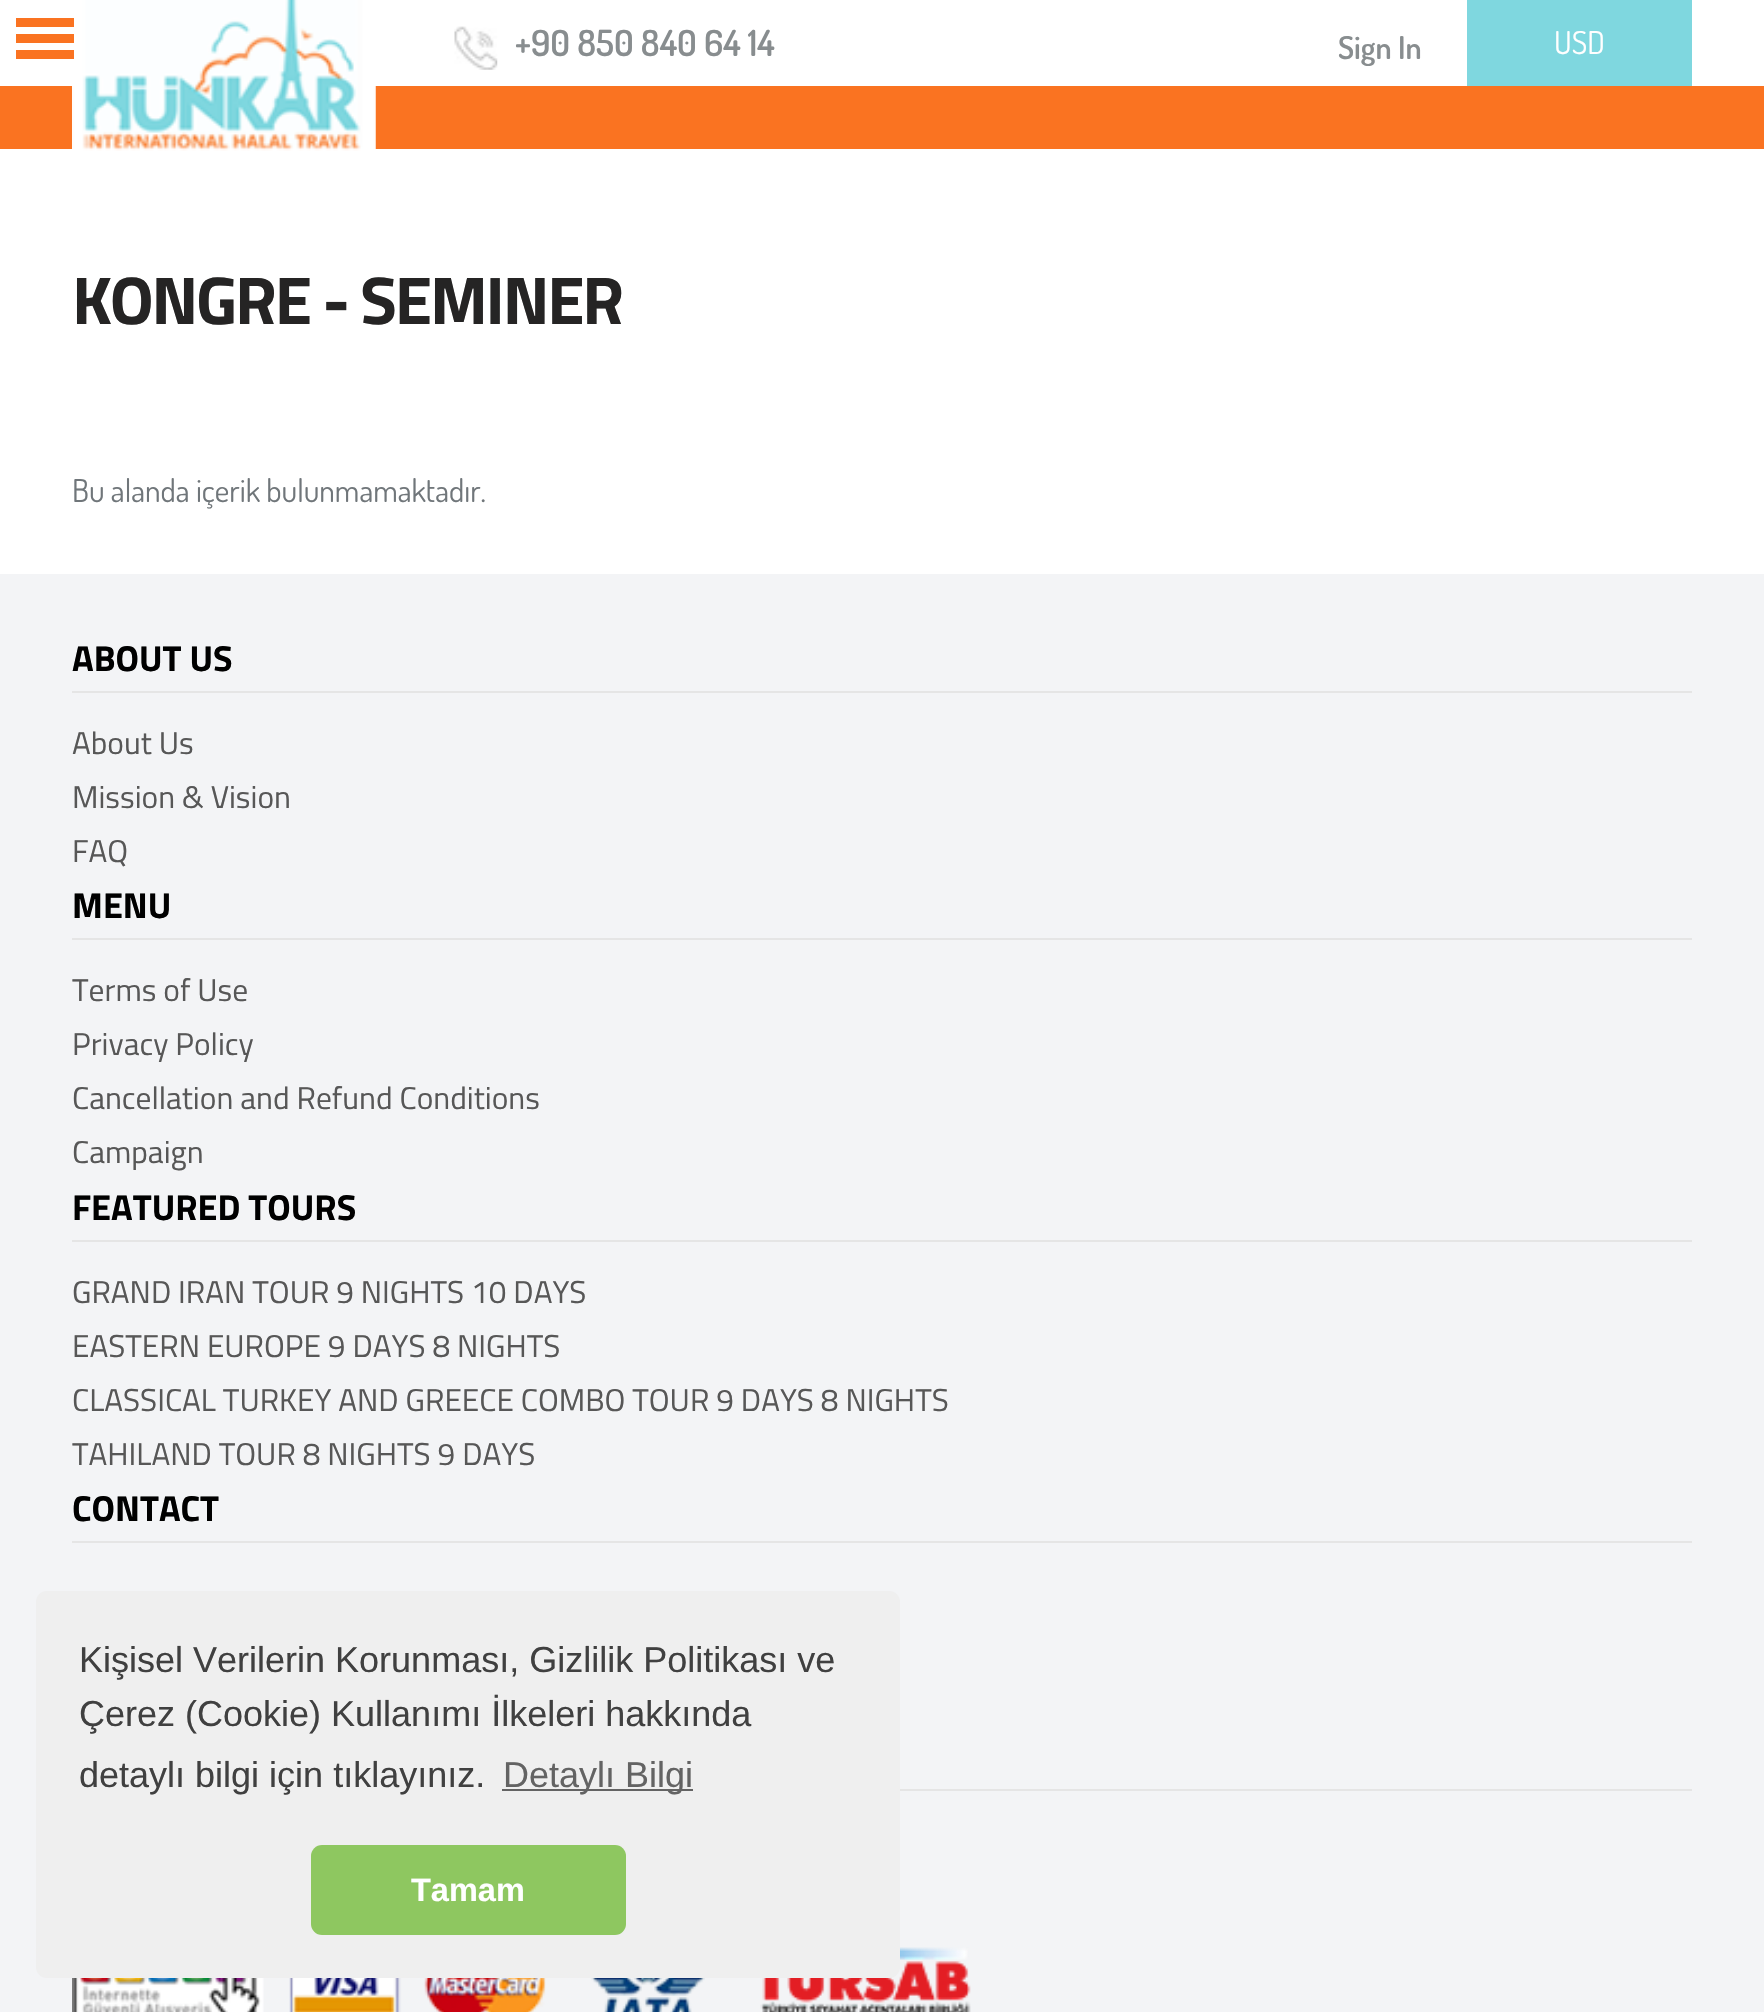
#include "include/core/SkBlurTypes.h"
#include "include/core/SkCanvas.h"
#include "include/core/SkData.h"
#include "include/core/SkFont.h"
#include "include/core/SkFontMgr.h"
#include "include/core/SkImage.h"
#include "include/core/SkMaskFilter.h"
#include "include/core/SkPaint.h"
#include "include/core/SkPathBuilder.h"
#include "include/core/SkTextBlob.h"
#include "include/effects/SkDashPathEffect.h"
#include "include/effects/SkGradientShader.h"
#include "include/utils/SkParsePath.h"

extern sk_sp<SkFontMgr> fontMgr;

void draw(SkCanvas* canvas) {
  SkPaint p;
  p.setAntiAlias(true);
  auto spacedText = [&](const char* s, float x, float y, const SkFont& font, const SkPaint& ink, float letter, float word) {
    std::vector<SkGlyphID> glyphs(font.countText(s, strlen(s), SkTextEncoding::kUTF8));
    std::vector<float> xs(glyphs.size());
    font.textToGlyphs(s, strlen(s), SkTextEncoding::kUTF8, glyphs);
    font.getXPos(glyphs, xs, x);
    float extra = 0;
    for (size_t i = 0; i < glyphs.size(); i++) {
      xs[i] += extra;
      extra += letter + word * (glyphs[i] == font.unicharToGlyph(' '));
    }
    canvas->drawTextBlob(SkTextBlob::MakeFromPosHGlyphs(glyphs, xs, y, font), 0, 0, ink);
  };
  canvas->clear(SK_ColorWHITE);
  p.setColor(SkColorSetRGB(250, 115, 33));
  canvas->drawRect(SkRect::MakeLTRB(0, 86, 1764, 149), p);
  canvas->drawImageRect(SkImages::DeferredFromEncodedData(SkData::MakeFromFileName("images/1.png")), SkRect::MakeLTRB(72, 0, 376, 151), SkSamplingOptions());
  canvas->drawRect(SkRect::MakeLTRB(16, 34, 74, 43), p);
  canvas->drawRect(SkRect::MakeLTRB(16, 18, 74, 27), p);
  canvas->drawRect(SkRect::MakeLTRB(16, 50, 74, 59), p);
  canvas->drawImageRect(SkImages::DeferredFromEncodedData(SkData::MakeFromFileName("images/2.png")), SkRect::MakeLTRB(454, 26, 498, 70), SkSamplingOptions());
  p.setColor(SkColorSetRGB(127, 215, 223));
  canvas->drawRect(SkRect::MakeLTRB(1467, 0, 1692, 86), p);
  p.setColor(SkColorSetRGB(243, 244, 246));
  canvas->drawRect(SkRect::MakeLTRB(0, 574, 1764, 2012), p);
  p.setColor(SkColorSetRGB(229, 229, 229));
  canvas->drawRect(SkRect::MakeLTRB(72, 691, 1692, 693), p);
  canvas->drawRect(SkRect::MakeLTRB(72, 938, 1692, 940), p);
  canvas->drawRect(SkRect::MakeLTRB(72, 1240, 1692, 1242), p);
  canvas->drawRect(SkRect::MakeLTRB(72, 1541, 1692, 1543), p);
  canvas->drawRect(SkRect::MakeLTRB(900, 1789, 1692, 1791), p);
  canvas->drawImageRect(SkImages::DeferredFromEncodedData(SkData::MakeFromFileName("images/3.png")), SkRect::MakeLTRB(72, 1947, 971, 2012), SkSamplingOptions());
  p.setColor(SkColorSetRGB(239, 239, 239));
  canvas->drawRoundRect(SkRect::MakeLTRB(36, 1591, 900, 1978), 11, 11, p);
  p.setColor(SkColorSetRGB(99, 99, 99));
  canvas->drawRect(SkRect::MakeLTRB(502, 1789, 693, 1791), p);
  p.setColor(SkColorSetRGB(142, 199, 96));
  canvas->drawRoundRect(SkRect::MakeLTRB(311, 1845, 626, 1935), 11, 11, p);
  SkFont font1(fontMgr->matchFamilyStyle("Dosis", SkFontStyle(600, SkFontStyle::kNormal_Width, SkFontStyle::kUpright_Slant)), 36);
  font1.setSubpixel(true);
  p.setColor(SkColorSetRGB(136, 141, 143));
  canvas->drawString("+90 850 840 64 14", 515, 56, font1, p);
  SkFont font2(fontMgr->matchFamilyStyle("Dosis", SkFontStyle(600, SkFontStyle::kNormal_Width, SkFontStyle::kUpright_Slant)), 31.5f);
  font2.setSubpixel(true);
  canvas->drawString("Sign In", 1338, 59, font2, p);
  SkFont font3(fontMgr->matchFamilyStyle("Dosis", SkFontStyle::Normal()), 31.5f);
  font3.setSubpixel(true);
  p.setColor(SK_ColorWHITE);
  canvas->drawString("USD", 1554, 54, font3, p);
  SkFont font4(fontMgr->matchFamilyStyle("Titillium Web", SkFontStyle::Bold()), 67.5f);
  font4.setSubpixel(true);
  p.setColor(SkColorSetRGB(37, 36, 36));
  spacedText("KONGRE - SEMINER", 72, 324, font4, p, -2.25f, 0);
  p.setColor(SkColorSetRGB(112, 118, 122));
  canvas->drawString("Bu alanda içerik bulunmamaktadır.", 72, 502, font3, p);
  SkFont font5(fontMgr->matchFamilyStyle("Titillium Web", SkFontStyle::Bold()), 36);
  font5.setSubpixel(true);
  p.setColor(SK_ColorBLACK);
  canvas->drawString("ABOUT US", 72, 671, font5, p);
  SkFont font6(fontMgr->matchFamilyStyle("Titillium Web", SkFontStyle::Normal()), 31.5f);
  font6.setSubpixel(true);
  p.setColor(SkColorSetRGB(87, 87, 87));
  canvas->drawString("About Us", 72, 754, font6, p);
  canvas->drawString("Mission & Vision", 72, 808, font6, p);
  canvas->drawString("FAQ", 72, 862, font6, p);
  p.setColor(SK_ColorBLACK);
  canvas->drawString("MENU", 72, 918, font5, p);
  p.setColor(SkColorSetRGB(87, 87, 87));
  canvas->drawString("Terms of Use", 72, 1001, font6, p);
  canvas->drawString("Privacy Policy", 72, 1055, font6, p);
  canvas->drawString("Cancellation and Refund Conditions", 72, 1109, font6, p);
  canvas->drawString("Campaign", 72, 1163, font6, p);
  p.setColor(SK_ColorBLACK);
  canvas->drawString("FEATURED TOURS", 72, 1220, font5, p);
  p.setColor(SkColorSetRGB(87, 87, 87));
  canvas->drawString("GRAND IRAN TOUR 9 NIGHTS 10 DAYS", 72, 1303, font6, p);
  canvas->drawString("EASTERN EUROPE 9 DAYS 8 NIGHTS", 72, 1357, font6, p);
  canvas->drawString("CLASSICAL TURKEY AND GREECE COMBO TOUR 9 DAYS 8 NIGHTS", 72, 1411, font6, p);
  canvas->drawString("TAHILAND TOUR 8 NIGHTS 9 DAYS", 72, 1465, font6, p);
  p.setColor(SK_ColorBLACK);
  canvas->drawString("CONTACT", 72, 1521, font5, p);
  SkFont font7(fontMgr->matchFamilyStyle("Liberation Sans", SkFontStyle::Normal()), 36);
  font7.setSubpixel(true);
  p.setColor(SkColorSetRGB(64, 64, 64));
  canvas->drawString("Kişisel Verilerin Korunması, Gizlilik Politikası ve", 79, 1672, font7, p);
  canvas->drawString("Çerez (Cookie) Kullanımı İlkeleri hakkında", 79, 1726, font7, p);
  canvas->drawString("detaylı bilgi için tıklayınız.", 79, 1787, font7, p);
  p.setColor(SkColorSetRGB(99, 99, 99));
  canvas->drawString("Detaylı Bilgi", 503, 1787, font7, p);
  SkFont font8(fontMgr->matchFamilyStyle("Liberation Sans", SkFontStyle::Bold()), 32.5f);
  font8.setSubpixel(true);
  p.setColor(SK_ColorWHITE);
  canvas->drawString("Tamam", 411, 1901, font8, p);
}
